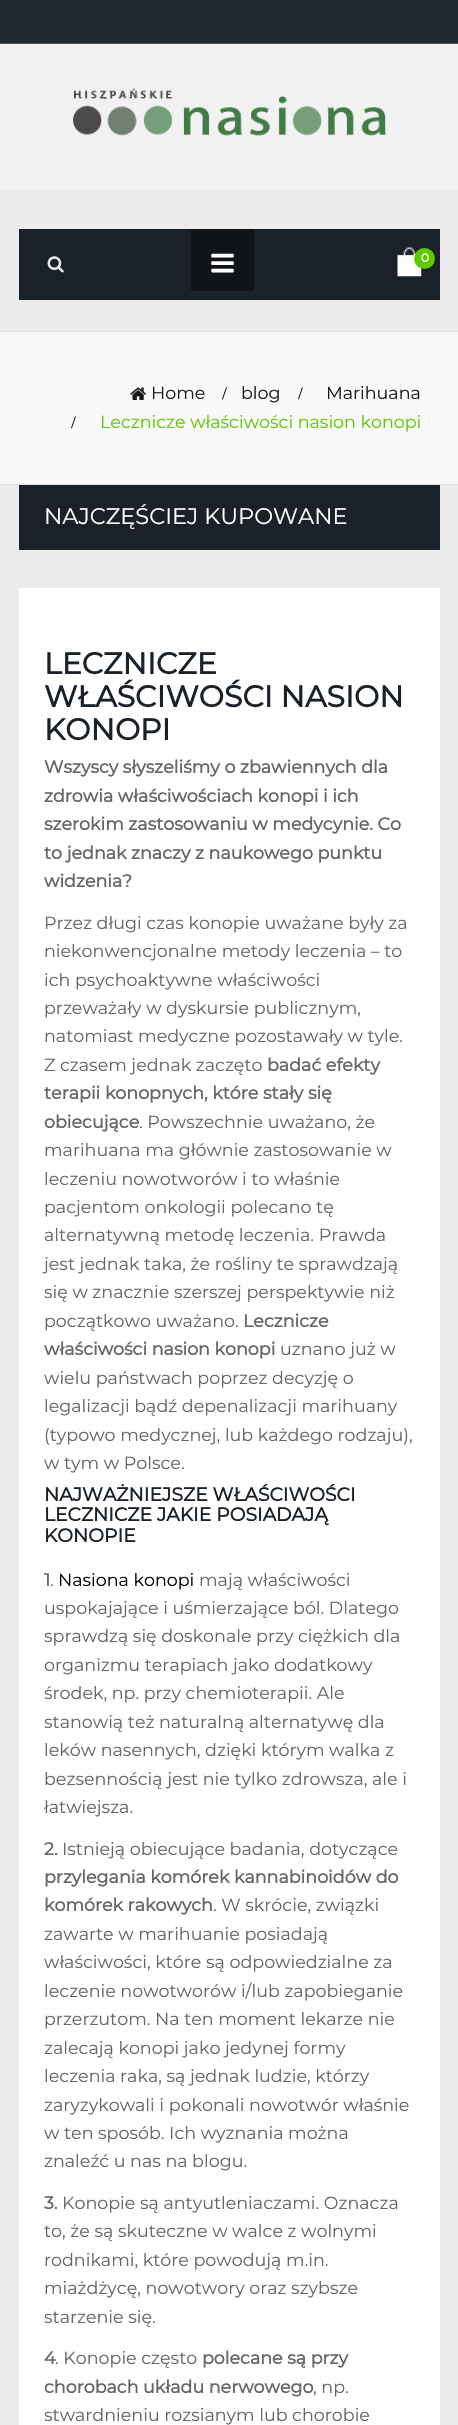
#include "include/core/SkBlurTypes.h"
#include "include/core/SkCanvas.h"
#include "include/core/SkData.h"
#include "include/core/SkFont.h"
#include "include/core/SkFontMgr.h"
#include "include/core/SkImage.h"
#include "include/core/SkMaskFilter.h"
#include "include/core/SkPaint.h"
#include "include/core/SkPathBuilder.h"
#include "include/core/SkTextBlob.h"
#include "include/effects/SkDashPathEffect.h"
#include "include/effects/SkGradientShader.h"
#include "include/utils/SkParsePath.h"

extern sk_sp<SkFontMgr> fontMgr;

void draw(SkCanvas* canvas) {
  SkPaint p;
  p.setAntiAlias(true);
  canvas->clear(SkColorSetRGB(236, 236, 236));
  p.setColor(SkColorSetRGB(32, 40, 49));
  canvas->drawRect(SkRect::MakeLTRB(0, 0, 458, 43), p);
  p.setColor(SkColorSetRGB(70, 77, 84));
  canvas->drawRect(SkRect::MakeLTRB(0, 43, 458, 44), p);
  p.setColor(SkColorSetRGB(241, 241, 241));
  canvas->drawRect(SkRect::MakeLTRB(0, 44, 458, 190), p);
  canvas->drawImageRect(SkImages::DeferredFromEncodedData(SkData::MakeFromFileName("images/1.png")), SkRect::MakeLTRB(73, 88, 386, 136), SkSamplingOptions());
  p.setColor(SkColorSetRGB(26, 33, 41));
  canvas->drawRect(SkRect::MakeLTRB(19, 229, 440, 300), p);
  canvas->drawImageRect(SkImages::DeferredFromEncodedData(SkData::MakeFromFileName("images/2.png")), SkRect::MakeLTRB(47, 256, 64, 273), SkSamplingOptions());
  p.setColor(SkColorSetRGB(16, 20, 25));
  canvas->drawRect(SkRect::MakeLTRB(191, 229, 254, 291), p);
  canvas->drawImageRect(SkImages::DeferredFromEncodedData(SkData::MakeFromFileName("images/3.png")), SkRect::MakeLTRB(211, 253, 234, 273), SkSamplingOptions());
  canvas->drawImageRect(SkImages::DeferredFromEncodedData(SkData::MakeFromFileName("images/4.png")), SkRect::MakeLTRB(397, 247, 422, 277), SkSamplingOptions());
  p.setColor(SkColorSetRGB(95, 201, 0));
  canvas->drawCircle(424.5f, 258.5f, 10.5f, p);
  p.setColor(SkColorSetRGB(249, 249, 249));
  canvas->drawRect(SkRect::MakeLTRB(0, 332, 458, 484), p);
  p.setColor(SkColorSetRGB(225, 225, 225));
  canvas->drawRect(SkRect::MakeLTRB(0, 331, 458, 332), p);
  canvas->drawRect(SkRect::MakeLTRB(0, 484, 458, 485), p);
  canvas->drawImageRect(SkImages::DeferredFromEncodedData(SkData::MakeFromFileName("images/5.png")), SkRect::MakeLTRB(130, 387, 146, 400), SkSamplingOptions());
  p.setColor(SkColorSetRGB(26, 33, 41));
  canvas->drawRect(SkRect::MakeLTRB(19, 485, 440, 550), p);
  p.setColor(SK_ColorWHITE);
  canvas->drawRect(SkRect::MakeLTRB(19, 588, 440, 2425), p);
  SkFont font1(fontMgr->matchFamilyStyle("Montserrat", SkFontStyle::Bold()), 12);
  font1.setSubpixel(true);
  canvas->drawString("0", 421, 262, font1, p);
  SkFont font2(fontMgr->matchFamilyStyle("Montserrat", SkFontStyle(100, SkFontStyle::kNormal_Width, SkFontStyle::kUpright_Slant)), 17.5f);
  font2.setSubpixel(true);
  p.setColor(SkColorSetRGB(25, 25, 25));
  canvas->drawString("Home", 151, 399, font2, p);
  SkFont font3(fontMgr->matchFamilyStyle("Liberation Serif", SkFontStyle::Normal()), 17.5f);
  font3.setSubpixel(true);
  p.setColor(SK_ColorBLACK);
  canvas->drawString("/", 222, 399, font3, p);
  p.setColor(SkColorSetRGB(25, 25, 25));
  canvas->drawString("blog", 241, 399, font2, p);
  p.setColor(SK_ColorBLACK);
  canvas->drawString("/", 298, 399, font3, p);
  p.setColor(SkColorSetRGB(25, 25, 25));
  canvas->drawString("Marihuana", 326, 399, font2, p);
  p.setColor(SK_ColorBLACK);
  canvas->drawString("/", 71, 428, font3, p);
  p.setColor(SkColorSetRGB(95, 201, 0));
  canvas->drawString("Lecznicze właściwości nasion konopi", 100, 428, font2, p);
  SkFont font4(fontMgr->matchFamilyStyle("Montserrat", SkFontStyle(100, SkFontStyle::kNormal_Width, SkFontStyle::kUpright_Slant)), 22.5f);
  font4.setSubpixel(true);
  p.setColor(SK_ColorWHITE);
  canvas->drawString("NAJCZĘŚCIEJ KUPOWANE", 44, 524, font4, p);
  SkFont font5(fontMgr->matchFamilyStyle("Montserrat", SkFontStyle::Bold()), 30);
  font5.setSubpixel(true);
  p.setColor(SkColorSetRGB(26, 33, 41));
  canvas->drawString("LECZNICZE", 44, 674, font5, p);
  canvas->drawString("WŁAŚCIWOŚCI NASION", 44, 707, font5, p);
  canvas->drawString("KONOPI", 44, 740, font5, p);
  SkFont font6(fontMgr->matchFamilyStyle("Montserrat", SkFontStyle::Bold()), 17.5f);
  font6.setSubpixel(true);
  p.setColor(SkColorSetRGB(102, 102, 102));
  canvas->drawString("Wszyscy słyszeliśmy o zbawiennych dla", 44, 773, font6, p);
  canvas->drawString("zdrowia właściwościach konopi i ich", 44, 802, font6, p);
  canvas->drawString("szerokim zastosowaniu w medycynie. Co", 44, 830, font6, p);
  canvas->drawString("to jednak znaczy z naukowego punktu", 44, 859, font6, p);
  canvas->drawString("widzenia?", 44, 887, font6, p);
  canvas->drawString("Przez długi czas konopie uważane były za", 44, 929, font2, p);
  canvas->drawString("niekonwencjonalne metody leczenia – to", 44, 957, font2, p);
  canvas->drawString("ich psychoaktywne właściwości", 44, 986, font2, p);
  canvas->drawString("przeważały w dyskursie publicznym,", 44, 1014, font2, p);
  canvas->drawString("natomiast medyczne pozostawały w tyle.", 44, 1042, font2, p);
  canvas->drawString("Z czasem jednak zaczęto", 44, 1071, font2, p);
  canvas->drawString("badać efekty", 267, 1071, font6, p);
  canvas->drawString("terapii konopnych, które stały się", 44, 1099, font6, p);
  canvas->drawString("obiecujące", 44, 1128, font6, p);
  canvas->drawString(". Powszechnie uważano, że", 139, 1128, font2, p);
  canvas->drawString("marihuana ma głównie zastosowanie w", 44, 1156, font2, p);
  canvas->drawString("leczeniu nowotworów i to właśnie", 44, 1185, font2, p);
  canvas->drawString("pacjentom onkologii polecano tę", 44, 1213, font2, p);
  canvas->drawString("alternatywną metodę leczenia. Prawda", 44, 1241, font2, p);
  canvas->drawString("jest jednak taka, że rośliny te sprawdzają", 44, 1270, font2, p);
  canvas->drawString("się w znacznie szerszej perspektywie niż", 44, 1298, font2, p);
  canvas->drawString("początkowo uważano.", 44, 1327, font2, p);
  canvas->drawString("Lecznicze", 243, 1327, font6, p);
  canvas->drawString("właściwości nasion konopi", 44, 1355, font6, p);
  canvas->drawString("uznano już w", 280, 1355, font2, p);
  canvas->drawString("wielu państwach poprzez decyzję o", 44, 1384, font2, p);
  canvas->drawString("legalizacji bądź depenalizacji marihuany", 44, 1412, font2, p);
  canvas->drawString("(typowo medycznej, lub każdego rodzaju),", 44, 1441, font2, p);
  canvas->drawString("w tym w Polsce.", 44, 1469, font2, p);
  SkFont font7(fontMgr->matchFamilyStyle("Montserrat", SkFontStyle::Bold()), 18.75f);
  font7.setSubpixel(true);
  p.setColor(SkColorSetRGB(26, 33, 41));
  canvas->drawString("NAJWAŻNIEJSZE WŁAŚCIWOŚCI", 44, 1501, font7, p);
  canvas->drawString("LECZNICZE JAKIE POSIADAJĄ", 44, 1521, font7, p);
  canvas->drawString("KONOPIE", 44, 1542, font7, p);
  p.setColor(SkColorSetRGB(102, 102, 102));
  canvas->drawString("1", 44, 1586, font6, p);
  canvas->drawString(".", 50, 1586, font2, p);
  p.setColor(SK_ColorBLACK);
  canvas->drawString("Nasiona konopi", 58, 1586, font2, p);
  p.setColor(SkColorSetRGB(102, 102, 102));
  canvas->drawString("mają właściwości", 199, 1586, font2, p);
  canvas->drawString("uspokajające i uśmierzające ból. Dlatego", 44, 1614, font2, p);
  canvas->drawString("sprawdzą się doskonale przy ciężkich dla", 44, 1642, font2, p);
  canvas->drawString("organizmu terapiach jako dodatkowy", 44, 1671, font2, p);
  canvas->drawString("środek, np. przy chemioterapii. Ale", 44, 1699, font2, p);
  canvas->drawString("stanowią też naturalną alternatywę dla", 44, 1728, font2, p);
  canvas->drawString("leków nasennych, dzięki którym walka z", 44, 1756, font2, p);
  canvas->drawString("bezsennością jest nie tylko zdrowsza, ale i", 44, 1785, font2, p);
  canvas->drawString("łatwiejsza.", 44, 1813, font2, p);
  canvas->drawString("2.", 44, 1855, font6, p);
  canvas->drawString("Istnieją obiecujące badania, dotyczące", 62, 1855, font2, p);
  canvas->drawString("przylegania komórek kannabinoidów do", 44, 1883, font6, p);
  canvas->drawString("komórek rakowych", 44, 1911, font6, p);
  canvas->drawString(". W skrócie, związki", 213, 1911, font2, p);
  canvas->drawString("zawarte w marihuanie posiadają", 44, 1940, font2, p);
  canvas->drawString("właściwości, które są odpowiedzialne za", 44, 1968, font2, p);
  canvas->drawString("leczenie nowotworów i/lub zapobieganie", 44, 1997, font2, p);
  canvas->drawString("przerzutom. Na ten moment lekarze nie", 44, 2025, font2, p);
  canvas->drawString("zalecają konopi jako jedynej formy", 44, 2054, font2, p);
  canvas->drawString("leczenia raka, są jednak ludzie, którzy", 44, 2082, font2, p);
  canvas->drawString("zaryzykowali i pokonali nowotwór właśnie", 44, 2111, font2, p);
  canvas->drawString("w ten sposób. Ich wyznania można", 44, 2139, font2, p);
  canvas->drawString("znaleźć u nas na blogu.", 44, 2167, font2, p);
  canvas->drawString("3.", 44, 2209, font6, p);
  canvas->drawString("Konopie są antyutleniaczami. Oznacza", 62, 2209, font2, p);
  canvas->drawString("to, że są skuteczne w walce z wolnymi", 44, 2237, font2, p);
  canvas->drawString("rodnikami, które powodują m.in.", 44, 2266, font2, p);
  canvas->drawString("miażdżycę, nowotwory oraz szybsze", 44, 2294, font2, p);
  canvas->drawString("starzenie się.", 44, 2323, font2, p);
  canvas->drawString("4", 44, 2364, font6, p);
  canvas->drawString(". Konopie często", 55, 2364, font2, p);
  canvas->drawString("polecane są przy", 202, 2364, font6, p);
  canvas->drawString("chorobach układu nerwowego", 44, 2393, font6, p);
  canvas->drawString(", np.", 313, 2393, font2, p);
  canvas->drawString("stwardnieniu rozsianym lub chorobie", 44, 2421, font2, p);
}
